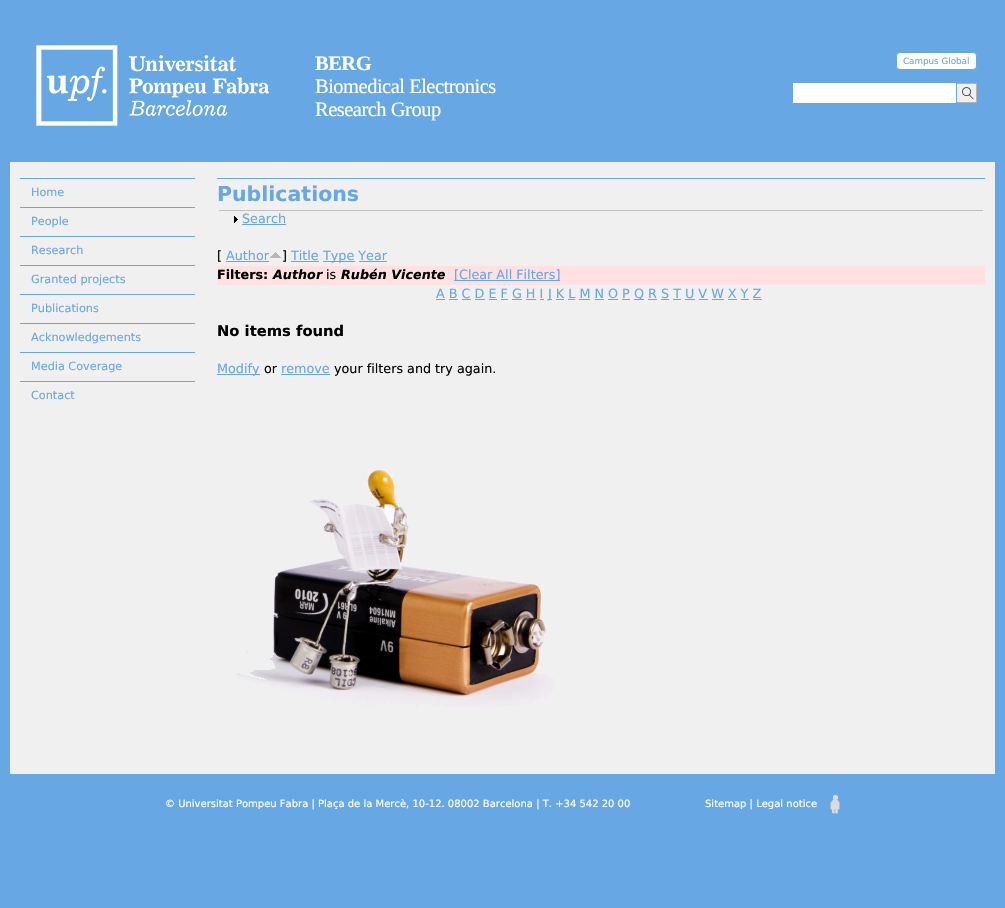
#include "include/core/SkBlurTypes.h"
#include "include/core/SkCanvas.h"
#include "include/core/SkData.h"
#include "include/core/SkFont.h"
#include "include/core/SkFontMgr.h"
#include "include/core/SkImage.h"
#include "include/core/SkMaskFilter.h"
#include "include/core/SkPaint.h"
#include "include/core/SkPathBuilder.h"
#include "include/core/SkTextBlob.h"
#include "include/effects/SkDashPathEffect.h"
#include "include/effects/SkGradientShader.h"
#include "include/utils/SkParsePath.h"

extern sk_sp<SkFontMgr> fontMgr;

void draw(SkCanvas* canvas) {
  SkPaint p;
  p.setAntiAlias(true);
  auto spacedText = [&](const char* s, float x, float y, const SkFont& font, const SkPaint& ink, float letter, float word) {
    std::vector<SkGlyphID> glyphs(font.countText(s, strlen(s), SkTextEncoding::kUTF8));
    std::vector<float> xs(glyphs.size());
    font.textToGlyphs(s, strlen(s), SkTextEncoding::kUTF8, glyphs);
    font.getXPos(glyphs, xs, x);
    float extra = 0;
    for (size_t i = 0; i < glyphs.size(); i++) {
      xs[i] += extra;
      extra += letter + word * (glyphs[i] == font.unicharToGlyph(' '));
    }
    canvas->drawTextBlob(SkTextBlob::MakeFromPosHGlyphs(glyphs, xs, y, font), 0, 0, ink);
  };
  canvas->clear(SkColorSetRGB(103, 167, 227));
  p.setColor(SkColorSetRGB(240, 240, 240));
  canvas->drawRect(SkRect::MakeLTRB(10, 162, 995, 774), p);
  canvas->drawImageRect(SkImages::DeferredFromEncodedData(SkData::MakeFromFileName("images/1.png")), SkRect::MakeLTRB(36, 45, 269, 126), SkSamplingOptions());
  p.setColor(SK_ColorWHITE);
  canvas->drawRoundRect(SkRect::MakeLTRB(896.5f, 52.5f, 976.5f, 69.5f), 3.5f, 3.5f, p);
  p.setStyle(SkPaint::kStroke_Style);
  p.setStrokeWidth(1);
  p.setColor(SkColorSetRGB(103, 167, 227));
  canvas->drawRoundRect(SkRect::MakeLTRB(896.5f, 52.5f, 976.5f, 69.5f), 3.5f, 3.5f, p);
  p.setStyle(SkPaint::kFill_Style);
  p.setColor(SK_ColorWHITE);
  canvas->drawRect(SkRect::MakeLTRB(793, 83, 956, 103), p);
  canvas->drawImageRect(SkImages::DeferredFromEncodedData(SkData::MakeFromFileName("images/2.png")), SkRect::MakeLTRB(957, 83, 977, 103), SkSamplingOptions());
  p.setColor(SkColorSetRGB(103, 167, 227));
  canvas->drawRect(SkRect::MakeLTRB(20, 178, 195, 179), p);
  canvas->drawRect(SkRect::MakeLTRB(20, 207, 195, 208), p);
  canvas->drawRect(SkRect::MakeLTRB(20, 236, 195, 237), p);
  canvas->drawRect(SkRect::MakeLTRB(20, 265, 195, 266), p);
  canvas->drawRect(SkRect::MakeLTRB(20, 294, 195, 295), p);
  canvas->drawRect(SkRect::MakeLTRB(20, 323, 195, 324), p);
  canvas->drawRect(SkRect::MakeLTRB(20, 352, 195, 353), p);
  canvas->drawRect(SkRect::MakeLTRB(20, 381, 195, 382), p);
  canvas->drawRect(SkRect::MakeLTRB(217, 178, 985, 179), p);
  p.setColor(SkColorSetRGB(192, 192, 192));
  canvas->drawRect(SkRect::MakeLTRB(219, 210, 983, 211), p);
  canvas->drawImageRect(SkImages::DeferredFromEncodedData(SkData::MakeFromFileName("images/3.png")), SkRect::MakeLTRB(234, 216, 238, 223), SkSamplingOptions());
  p.setColor(SkColorSetRGB(103, 167, 227));
  canvas->drawRect(SkRect::MakeLTRB(242, 224, 286, 225), p);
  canvas->drawRect(SkRect::MakeLTRB(226, 261, 269, 262), p);
  canvas->drawImageRect(SkImages::DeferredFromEncodedData(SkData::MakeFromFileName("images/4.png")), SkRect::MakeLTRB(270, 252, 281, 258), SkSamplingOptions());
  canvas->drawRect(SkRect::MakeLTRB(291, 261, 319, 262), p);
  canvas->drawRect(SkRect::MakeLTRB(323, 261, 355, 262), p);
  canvas->drawRect(SkRect::MakeLTRB(359, 261, 387, 262), p);
  p.setColor(SkColorSetRGB(255, 225, 225));
  canvas->drawRect(SkRect::MakeLTRB(217, 266, 985, 285), p);
  p.setColor(SkColorSetRGB(103, 167, 227));
  canvas->drawRect(SkRect::MakeLTRB(454, 280, 560, 281), p);
  canvas->drawRect(SkRect::MakeLTRB(436, 299, 445, 300), p);
  canvas->drawRect(SkRect::MakeLTRB(548, 299, 552, 300), p);
  canvas->drawRect(SkRect::MakeLTRB(634, 299, 644, 300), p);
  canvas->drawRect(SkRect::MakeLTRB(449, 299, 458, 300), p);
  canvas->drawRect(SkRect::MakeLTRB(462, 299, 471, 300), p);
  canvas->drawRect(SkRect::MakeLTRB(475, 299, 485, 300), p);
  canvas->drawRect(SkRect::MakeLTRB(489, 299, 497, 300), p);
  canvas->drawRect(SkRect::MakeLTRB(501, 299, 508, 300), p);
  canvas->drawRect(SkRect::MakeLTRB(512, 299, 522, 300), p);
  canvas->drawRect(SkRect::MakeLTRB(526, 299, 536, 300), p);
  canvas->drawRect(SkRect::MakeLTRB(540, 299, 544, 300), p);
  canvas->drawRect(SkRect::MakeLTRB(556, 299, 564, 300), p);
  canvas->drawRect(SkRect::MakeLTRB(568, 299, 575, 300), p);
  canvas->drawRect(SkRect::MakeLTRB(579, 299, 590, 300), p);
  canvas->drawRect(SkRect::MakeLTRB(595, 299, 604, 300), p);
  canvas->drawRect(SkRect::MakeLTRB(608, 299, 618, 300), p);
  canvas->drawRect(SkRect::MakeLTRB(622, 299, 630, 300), p);
  canvas->drawRect(SkRect::MakeLTRB(648, 299, 657, 300), p);
  canvas->drawRect(SkRect::MakeLTRB(661, 299, 669, 300), p);
  canvas->drawRect(SkRect::MakeLTRB(673, 299, 681, 300), p);
  canvas->drawRect(SkRect::MakeLTRB(685, 299, 695, 300), p);
  canvas->drawRect(SkRect::MakeLTRB(699, 299, 708, 300), p);
  canvas->drawRect(SkRect::MakeLTRB(712, 299, 724, 300), p);
  canvas->drawRect(SkRect::MakeLTRB(728, 299, 737, 300), p);
  canvas->drawRect(SkRect::MakeLTRB(741, 299, 749, 300), p);
  canvas->drawRect(SkRect::MakeLTRB(753, 299, 762, 300), p);
  canvas->drawRect(SkRect::MakeLTRB(217, 374, 260, 375), p);
  canvas->drawRect(SkRect::MakeLTRB(281, 374, 330, 375), p);
  canvas->drawImageRect(SkImages::DeferredFromEncodedData(SkData::MakeFromFileName("images/5.png")), SkRect::MakeLTRB(237, 469, 554, 708), SkSamplingOptions());
  canvas->drawImageRect(SkImages::DeferredFromEncodedData(SkData::MakeFromFileName("images/6.png")), SkRect::MakeLTRB(830, 795, 840, 814), SkSamplingOptions());
  SkFont font1(fontMgr->matchFamilyStyle("Liberation Serif", SkFontStyle::Bold()), 20.5f);
  font1.setSubpixel(true);
  p.setColor(SK_ColorWHITE);
  spacedText("BERG", 315, 70, font1, p, -0.5f, 0);
  SkFont font2(fontMgr->matchFamilyStyle("Liberation Serif", SkFontStyle::Normal()), 20.5f);
  font2.setSubpixel(true);
  spacedText("Biomedical Electronics", 315, 93, font2, p, -0.5f, 0);
  spacedText("Research Group", 315, 116, font2, p, -0.5f, 0);
  SkFont font3(fontMgr->matchFamilyStyle("DejaVu Sans", SkFontStyle::Normal()), 8.75f);
  font3.setSubpixel(true);
  p.setColor(SkColorSetRGB(103, 167, 227));
  canvas->drawString("Campus Global", 903, 64, font3, p);
  SkFont font4(fontMgr->matchFamilyStyle("DejaVu Sans", SkFontStyle::Normal()), 11.25f);
  font4.setSubpixel(true);
  canvas->drawString("Home", 31, 196, font4, p);
  canvas->drawString("People", 31, 225, font4, p);
  canvas->drawString("Research", 31, 254, font4, p);
  canvas->drawString("Granted projects", 31, 283, font4, p);
  canvas->drawString("Publications", 31, 312, font4, p);
  canvas->drawString("Acknowledgements", 31, 341, font4, p);
  canvas->drawString("Media Coverage", 31, 370, font4, p);
  canvas->drawString("Contact", 31, 399, font4, p);
  SkFont font5(fontMgr->matchFamilyStyle("DejaVu Sans", SkFontStyle::Bold()), 20.5f);
  font5.setSubpixel(true);
  canvas->drawString("Publications", 217, 201, font5, p);
  SkFont font6(fontMgr->matchFamilyStyle("DejaVu Sans", SkFontStyle::Normal()), 12.75f);
  font6.setSubpixel(true);
  canvas->drawString("Search", 242, 223, font6, p);
  p.setColor(SK_ColorBLACK);
  canvas->drawString("[", 217, 260, font6, p);
  p.setColor(SkColorSetRGB(103, 167, 227));
  canvas->drawString("Author", 226, 260, font6, p);
  p.setColor(SK_ColorBLACK);
  canvas->drawString("]", 282, 260, font6, p);
  p.setColor(SkColorSetRGB(103, 167, 227));
  canvas->drawString("Title", 291, 260, font6, p);
  canvas->drawString("Type Year", 323, 260, font6, p);
  SkFont font7(fontMgr->matchFamilyStyle("DejaVu Sans", SkFontStyle::Bold()), 12.75f);
  font7.setSubpixel(true);
  p.setColor(SK_ColorBLACK);
  canvas->drawString("Filters:", 217, 279, font7, p);
  SkFont font8(fontMgr->matchFamilyStyle("DejaVu Sans", SkFontStyle::BoldItalic()), 12.75f);
  font8.setSubpixel(true);
  canvas->drawString("Author", 273, 279, font8, p);
  canvas->drawString("is", 326, 279, font6, p);
  canvas->drawString("Rubén Vicente", 341, 279, font8, p);
  p.setColor(SkColorSetRGB(103, 167, 227));
  canvas->drawString("[Clear All Filters]", 454, 279, font6, p);
  canvas->drawString("A B C D E F G H I", 436, 298, font6, p);
  canvas->drawString("J K L M N O P", 548, 298, font6, p);
  canvas->drawString("Q R S T U V W X Y Z", 634, 298, font6, p);
  SkFont font9(fontMgr->matchFamilyStyle("DejaVu Sans", SkFontStyle::Bold()), 14.75f);
  font9.setSubpixel(true);
  p.setColor(SK_ColorBLACK);
  canvas->drawString("No items found", 217, 336, font9, p);
  p.setColor(SkColorSetRGB(103, 167, 227));
  canvas->drawString("Modify", 217, 373, font6, p);
  p.setColor(SK_ColorBLACK);
  canvas->drawString("or", 264, 373, font6, p);
  p.setColor(SkColorSetRGB(103, 167, 227));
  canvas->drawString("remove", 281, 373, font6, p);
  p.setColor(SK_ColorBLACK);
  canvas->drawString("your filters and try again.", 334, 373, font6, p);
  SkFont font10(fontMgr->matchFamilyStyle("DejaVu Sans", SkFontStyle::Normal()), 10);
  font10.setSubpixel(true);
  p.setColor(SK_ColorWHITE);
  canvas->drawString("© Universitat Pompeu Fabra | Plaça de la Mercè, 10-12. 08002 Barcelona | T. +34 542 20 00", 165, 807, font10, p);
  canvas->drawString("Sitemap | Legal notice", 705, 807, font10, p);
}
